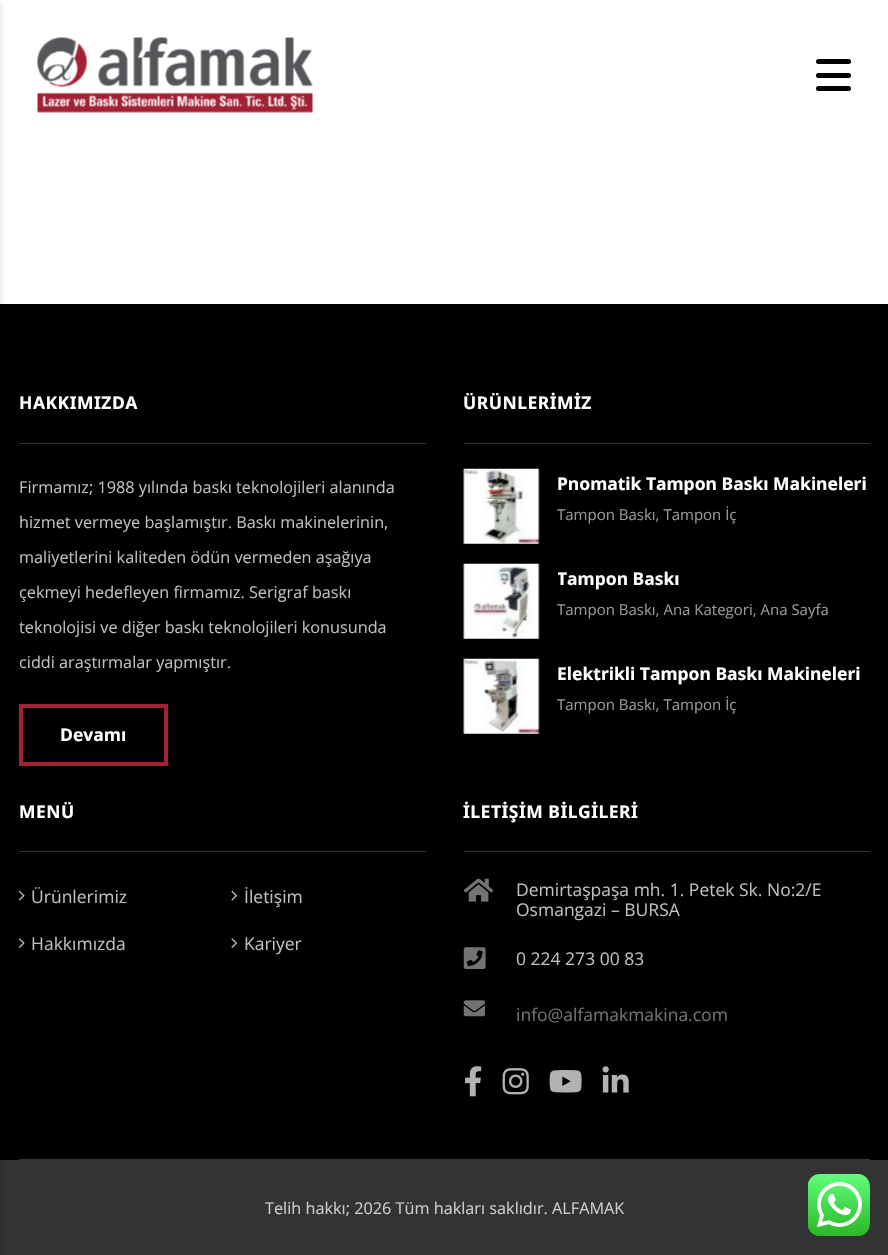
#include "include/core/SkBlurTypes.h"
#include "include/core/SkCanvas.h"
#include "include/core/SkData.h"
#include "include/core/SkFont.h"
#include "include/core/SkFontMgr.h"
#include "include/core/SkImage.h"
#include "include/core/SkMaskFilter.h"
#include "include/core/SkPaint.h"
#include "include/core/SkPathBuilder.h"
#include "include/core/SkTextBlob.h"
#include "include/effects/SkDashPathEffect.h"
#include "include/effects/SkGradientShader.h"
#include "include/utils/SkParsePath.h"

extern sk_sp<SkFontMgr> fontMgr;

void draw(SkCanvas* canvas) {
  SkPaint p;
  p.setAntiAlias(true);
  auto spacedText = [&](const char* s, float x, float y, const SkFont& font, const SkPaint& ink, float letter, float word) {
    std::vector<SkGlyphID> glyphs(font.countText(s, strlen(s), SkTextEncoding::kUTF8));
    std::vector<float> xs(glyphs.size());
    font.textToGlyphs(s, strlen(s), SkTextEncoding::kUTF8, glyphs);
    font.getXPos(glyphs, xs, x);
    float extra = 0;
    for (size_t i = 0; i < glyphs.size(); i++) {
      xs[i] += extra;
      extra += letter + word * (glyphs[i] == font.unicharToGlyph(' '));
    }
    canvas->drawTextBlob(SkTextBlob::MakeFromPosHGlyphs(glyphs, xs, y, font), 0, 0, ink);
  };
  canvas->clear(SK_ColorWHITE);
  p.setColor(SK_ColorBLACK);
  canvas->drawRect(SkRect::MakeLTRB(0, 304, 888, 1160), p);
  p.setColor(SkColorSetRGB(51, 51, 51));
  canvas->drawRect(SkRect::MakeLTRB(0, 1160, 888, 1255), p);
  p.setColor(SkColorSetARGB(51, 0, 0, 0));
  p.setMaskFilter(SkMaskFilter::MakeBlur(kNormal_SkBlurStyle, 3));
  canvas->drawRect(SkRect::MakeLTRB(-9, 4, -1, 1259), p);
  p.setMaskFilter(nullptr);
  canvas->drawImageRect(SkImages::DeferredFromEncodedData(SkData::MakeFromFileName("images/1.png")), SkRect::MakeLTRB(37, 37, 313, 113), SkSamplingOptions());
  p.setColor(SK_ColorBLACK);
  canvas->drawRoundRect(SkRect::MakeLTRB(816, 59, 851, 64), 2.5f, 2.5f, p);
  canvas->drawRoundRect(SkRect::MakeLTRB(816, 73, 851, 78), 2.5f, 2.5f, p);
  canvas->drawRoundRect(SkRect::MakeLTRB(816, 86, 851, 91), 2.5f, 2.5f, p);
  p.setColor(SkColorSetRGB(51, 51, 51));
  canvas->drawRect(SkRect::MakeLTRB(19, 443, 426, 444), p);
  p.setStyle(SkPaint::kStroke_Style);
  p.setStrokeWidth(4);
  p.setColor(SkColorSetRGB(163, 33, 53));
  canvas->drawRect(SkRect::MakeLTRB(21, 706, 166, 764), p);
  p.setStyle(SkPaint::kFill_Style);
  p.setColor(SkColorSetRGB(51, 51, 51));
  canvas->drawRect(SkRect::MakeLTRB(464, 443, 870, 444), p);
  canvas->drawImageRect(SkImages::DeferredFromEncodedData(SkData::MakeFromFileName("images/2.png")), SkRect::MakeLTRB(463, 468, 540, 544), SkSamplingOptions());
  canvas->drawImageRect(SkImages::DeferredFromEncodedData(SkData::MakeFromFileName("images/3.png")), SkRect::MakeLTRB(463, 563, 540, 639), SkSamplingOptions());
  canvas->drawImageRect(SkImages::DeferredFromEncodedData(SkData::MakeFromFileName("images/4.png")), SkRect::MakeLTRB(463, 658, 540, 734), SkSamplingOptions());
  canvas->drawRect(SkRect::MakeLTRB(19, 851, 426, 852), p);
  canvas->drawImageRect(SkImages::DeferredFromEncodedData(SkData::MakeFromFileName("images/5.png")), SkRect::MakeLTRB(18, 890, 25, 901), SkSamplingOptions());
  canvas->drawImageRect(SkImages::DeferredFromEncodedData(SkData::MakeFromFileName("images/6.png")), SkRect::MakeLTRB(231, 890, 237, 901), SkSamplingOptions());
  canvas->drawImageRect(SkImages::DeferredFromEncodedData(SkData::MakeFromFileName("images/7.png")), SkRect::MakeLTRB(18, 938, 25, 948), SkSamplingOptions());
  canvas->drawImageRect(SkImages::DeferredFromEncodedData(SkData::MakeFromFileName("images/8.png")), SkRect::MakeLTRB(231, 938, 237, 948), SkSamplingOptions());
  canvas->drawRect(SkRect::MakeLTRB(464, 851, 870, 852), p);
  canvas->drawImageRect(SkImages::DeferredFromEncodedData(SkData::MakeFromFileName("images/9.png")), SkRect::MakeLTRB(463, 878, 494, 902), SkSamplingOptions());
  canvas->drawImageRect(SkImages::DeferredFromEncodedData(SkData::MakeFromFileName("images/10.png")), SkRect::MakeLTRB(463, 947, 486, 970), SkSamplingOptions());
  canvas->drawImageRect(SkImages::DeferredFromEncodedData(SkData::MakeFromFileName("images/11.png")), SkRect::MakeLTRB(463, 1000, 485, 1017), SkSamplingOptions());
  canvas->drawImageRect(SkImages::DeferredFromEncodedData(SkData::MakeFromFileName("images/12.png")), SkRect::MakeLTRB(465, 1066, 482, 1097), SkSamplingOptions());
  canvas->drawImageRect(SkImages::DeferredFromEncodedData(SkData::MakeFromFileName("images/13.png")), SkRect::MakeLTRB(502, 1068, 529, 1095), SkSamplingOptions());
  canvas->drawImageRect(SkImages::DeferredFromEncodedData(SkData::MakeFromFileName("images/14.png")), SkRect::MakeLTRB(549, 1070, 582, 1093), SkSamplingOptions());
  canvas->drawImageRect(SkImages::DeferredFromEncodedData(SkData::MakeFromFileName("images/15.png")), SkRect::MakeLTRB(602, 1066, 629, 1093), SkSamplingOptions());
  canvas->drawRect(SkRect::MakeLTRB(19, 1159, 870, 1160), p);
  canvas->drawImageRect(SkImages::DeferredFromEncodedData(SkData::MakeFromFileName("images/16.png")), SkRect::MakeLTRB(808, 1174, 870, 1236), SkSamplingOptions());
  SkFont font1(fontMgr->matchFamilyStyle("Noto Sans", SkFontStyle::Bold()), 17.5f);
  font1.setSubpixel(true);
  p.setColor(SK_ColorWHITE);
  spacedText("HAKKIMIZDA", 19, 409, font1, p, 0.5f, 0);
  SkFont font2(fontMgr->matchFamilyStyle("Open Sans", SkFontStyle::Normal()), 16.25f);
  font2.setSubpixel(true);
  p.setColor(SkColorSetRGB(191, 191, 191));
  canvas->drawString("Firmamız; 1988 yılında baskı teknolojileri alanında", 19, 493, font2, p);
  canvas->drawString("hizmet vermeye başlamıştır. Baskı makinelerinin,", 19, 528, font2, p);
  canvas->drawString("maliyetlerini kaliteden ödün vermeden aşağıya", 19, 563, font2, p);
  canvas->drawString("çekmeyi hedefleyen firmamız. Serigraf baskı", 19, 598, font2, p);
  canvas->drawString("teknolojisi ve diğer baskı teknolojileri konusunda", 19, 633, font2, p);
  canvas->drawString("ciddi araştırmalar yapmıştır.", 19, 668, font2, p);
  SkFont font3(fontMgr->matchFamilyStyle("Open Sans", SkFontStyle::Bold()), 17.5f);
  font3.setSubpixel(true);
  p.setColor(SK_ColorWHITE);
  canvas->drawString("Devamı", 60, 741, font3, p);
  spacedText("ÜRÜNLERİMİZ", 463, 409, font1, p, 0.5f, 0);
  canvas->drawString("Pnomatik Tampon Baskı Makineleri", 557, 490, font1, p);
  SkFont font4(fontMgr->matchFamilyStyle("Open Sans", SkFontStyle::Normal()), 15);
  font4.setSubpixel(true);
  p.setColor(SkColorSetRGB(153, 153, 153));
  canvas->drawString("Tampon Baskı, Tampon İç", 557, 520, font4, p);
  canvas->save();
  canvas->clipRect(SkRect::MakeLTRB(558, 564, 870, 594));
  p.setColor(SK_ColorWHITE);
  canvas->drawString("Tampon Baskı", 557, 585, font1, p);
  canvas->restore();
  p.setColor(SkColorSetRGB(153, 153, 153));
  canvas->drawString("Tampon Baskı, Ana Kategori, Ana Sayfa", 557, 615, font4, p);
  p.setColor(SK_ColorWHITE);
  canvas->drawString("Elektrikli Tampon Baskı Makineleri", 557, 680, font1, p);
  p.setColor(SkColorSetRGB(153, 153, 153));
  canvas->drawString("Tampon Baskı, Tampon İç", 557, 710, font4, p);
  p.setColor(SK_ColorWHITE);
  spacedText("MENÜ", 19, 818, font1, p, 0.5f, 0);
  SkFont font5(fontMgr->matchFamilyStyle("Open Sans", SkFontStyle::Normal()), 17.5f);
  font5.setSubpixel(true);
  p.setColor(SkColorSetRGB(191, 191, 191));
  canvas->drawString("Ürünlerimiz", 31, 903, font5, p);
  canvas->drawString("İletişim", 244, 903, font5, p);
  canvas->drawString("Hakkımızda", 31, 950, font5, p);
  canvas->drawString("Kariyer", 244, 950, font5, p);
  p.setColor(SK_ColorWHITE);
  spacedText("İLETİŞİM BİLGİLERİ", 463, 818, font1, p, 0.5f, 0);
  p.setColor(SkColorSetRGB(191, 191, 191));
  canvas->drawString("Demirtaşpaşa mh. 1. Petek Sk. No:2/E", 516, 896, font5, p);
  canvas->drawString("Osmangazi – BURSA", 516, 916, font5, p);
  canvas->drawString("0 224 273 00 83", 516, 965, font5, p);
  p.setColor(SkColorSetRGB(115, 115, 115));
  canvas->drawString("info@alfamakmakina.com", 516, 1021, font5, p);
  p.setColor(SkColorSetRGB(204, 204, 204));
  canvas->drawString("Telih hakkı; 2026 Tüm hakları saklıdır. ALFAMAK", 265, 1214, font2, p);
}
